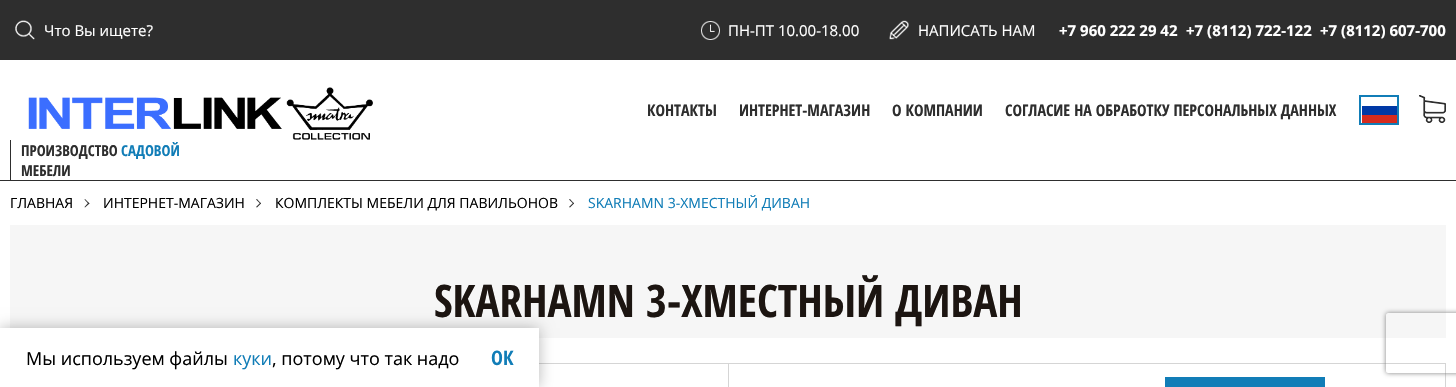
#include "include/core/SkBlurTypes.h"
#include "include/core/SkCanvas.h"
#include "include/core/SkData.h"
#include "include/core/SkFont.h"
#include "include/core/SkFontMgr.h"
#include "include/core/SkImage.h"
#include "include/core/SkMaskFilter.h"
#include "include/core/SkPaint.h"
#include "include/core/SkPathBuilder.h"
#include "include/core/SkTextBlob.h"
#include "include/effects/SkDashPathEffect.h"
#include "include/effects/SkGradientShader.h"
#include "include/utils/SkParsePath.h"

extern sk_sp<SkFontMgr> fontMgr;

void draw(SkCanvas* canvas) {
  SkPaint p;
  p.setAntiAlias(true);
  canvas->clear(SK_ColorWHITE);
  p.setColor(SkColorSetRGB(46, 46, 46));
  canvas->drawRect(SkRect::MakeLTRB(0, 0, 1456, 60), p);
  canvas->drawImageRect(SkImages::DeferredFromEncodedData(SkData::MakeFromFileName("images/1.png")), SkRect::MakeLTRB(15, 20, 35, 40), SkSamplingOptions());
  canvas->drawImageRect(SkImages::DeferredFromEncodedData(SkData::MakeFromFileName("images/2.png")), SkRect::MakeLTRB(701, 21, 720, 40), SkSamplingOptions());
  canvas->drawImageRect(SkImages::DeferredFromEncodedData(SkData::MakeFromFileName("images/3.png")), SkRect::MakeLTRB(889, 20, 909, 40), SkSamplingOptions());
  canvas->drawRect(SkRect::MakeLTRB(0, 180, 1456, 181), p);
  p.setStyle(SkPaint::kStroke_Style);
  p.setStrokeWidth(2);
  p.setColor(SkColorSetRGB(17, 125, 183));
  canvas->drawRect(SkRect::MakeLTRB(1360, 96, 1398, 124), p);
  p.setStyle(SkPaint::kFill_Style);
  p.setColor(SkColorSetRGB(0, 57, 166));
  canvas->drawRect(SkRect::MakeLTRB(1362, 106, 1397, 115), p);
  p.setColor(SkColorSetRGB(213, 43, 30));
  canvas->drawRect(SkRect::MakeLTRB(1362, 115, 1397, 123), p);
  canvas->drawImageRect(SkImages::DeferredFromEncodedData(SkData::MakeFromFileName("images/4.png")), SkRect::MakeLTRB(1419, 95, 1446, 123), SkSamplingOptions());
  canvas->drawImageRect(SkImages::DeferredFromEncodedData(SkData::MakeFromFileName("images/5.png")), SkRect::MakeLTRB(28, 87, 373, 140), SkSamplingOptions());
  p.setColor(SkColorSetRGB(46, 46, 46));
  canvas->drawRect(SkRect::MakeLTRB(10, 140, 11, 180), p);
  canvas->drawPath(SkPathBuilder().moveTo(84.5f, 199.5f).lineTo(85, 199).lineTo(89.5f, 203.5f).lineTo(88.5f, 204).close().detach(), p);
  canvas->drawPath(SkPathBuilder().moveTo(84.5f, 207).lineTo(88.5f, 202.5f).lineTo(89.5f, 203.5f).lineTo(85, 207.5f).close().detach(), p);
  canvas->drawPath(SkPathBuilder().moveTo(256, 199.5f).lineTo(257, 199).lineTo(261, 203.5f).lineTo(260.5f, 204).close().detach(), p);
  canvas->drawPath(SkPathBuilder().moveTo(256, 207).lineTo(260.5f, 202.5f).lineTo(261, 203.5f).lineTo(257, 207.5f).close().detach(), p);
  canvas->drawPath(SkPathBuilder().moveTo(569, 199.5f).lineTo(570, 199).lineTo(574, 203.5f).lineTo(573.5f, 204).close().detach(), p);
  canvas->drawPath(SkPathBuilder().moveTo(569, 207).lineTo(573.5f, 202.5f).lineTo(574, 203.5f).lineTo(570, 207.5f).close().detach(), p);
  p.setColor(SkColorSetRGB(246, 246, 246));
  canvas->drawRect(SkRect::MakeLTRB(10, 225, 1446, 338), p);
  p.setStyle(SkPaint::kStroke_Style);
  p.setStrokeWidth(1);
  p.setColor(SkColorSetRGB(213, 213, 213));
  canvas->drawRect(SkRect::MakeLTRB(10.5f, 363.5f, 1445.5f, 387.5f), p);
  p.setStyle(SkPaint::kFill_Style);
  canvas->drawRect(SkRect::MakeLTRB(728, 364, 729, 387), p);
  p.setColor(SkColorSetRGB(17, 125, 183));
  canvas->drawRect(SkRect::MakeLTRB(1165, 377, 1325, 387), p);
  p.setColor(SkColorSetARGB(71, 0, 0, 0));
  p.setMaskFilter(SkMaskFilter::MakeBlur(kNormal_SkBlurStyle, 7));
  canvas->drawRect(SkRect::MakeLTRB(0, 328, 539, 387), p);
  p.setMaskFilter(nullptr);
  p.setColor(SK_ColorWHITE);
  canvas->drawRect(SkRect::MakeLTRB(0, 328, 539, 387), p);
  canvas->save();
  canvas->clipPath(SkPathBuilder(SkPathFillType::kEvenOdd).moveTo(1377, 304).lineTo(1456, 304).lineTo(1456, 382).lineTo(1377, 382).close().moveTo(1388, 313).lineTo(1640, 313).cubicTo(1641, 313, 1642, 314, 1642, 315).lineTo(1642, 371).cubicTo(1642, 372, 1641, 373, 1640, 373).lineTo(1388, 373).cubicTo(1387, 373, 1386, 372, 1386, 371).lineTo(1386, 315).cubicTo(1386, 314, 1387, 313, 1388, 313).close().detach(), true);
  p.setColor(SkColorSetRGB(128, 128, 128));
  p.setMaskFilter(SkMaskFilter::MakeBlur(kNormal_SkBlurStyle, 2.5f));
  canvas->drawRoundRect(SkRect::MakeLTRB(1386, 313, 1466, 373), 2, 2, p);
  p.setMaskFilter(nullptr);
  canvas->restore();
  SkFont font1(fontMgr->matchFamilyStyle("Open Sans", SkFontStyle::Normal()), 15);
  font1.setSubpixel(true);
  p.setColor(SK_ColorWHITE);
  canvas->drawString("Что Вы ищете?", 44, 36, font1, p);
  canvas->drawString("ПН-ПТ 10.00-18.00", 728, 36, font1, p);
  canvas->drawString("НАПИСАТЬ НАМ", 918, 36, font1, p);
  SkFont font2(fontMgr->matchFamilyStyle("Open Sans", SkFontStyle::Bold()), 15);
  font2.setSubpixel(true);
  canvas->drawString("+7 960 222 29 42", 1059, 36, font2, p);
  canvas->drawString("+7 (8112) 722-122", 1186, 36, font2, p);
  canvas->drawString("+7 (8112) 607-700", 1320, 36, font2, p);
  SkFont font3(fontMgr->matchFamilyStyle("Open Sans Condensed", SkFontStyle::Bold()), 16);
  font3.setSubpixel(true);
  p.setColor(SkColorSetRGB(46, 46, 46));
  canvas->drawString("КОНТАКТЫ", 647, 116, font3, p);
  canvas->drawString("ИНТЕРНЕТ-МАГАЗИН", 739, 116, font3, p);
  canvas->drawString("О КОМПАНИИ", 892, 116, font3, p);
  canvas->drawString("СОГЛАСИЕ НА ОБРАБОТКУ ПЕРСОНАЛЬНЫХ ДАННЫХ", 1005, 116, font3, p);
  SkFont font4(fontMgr->matchFamilyStyle("Open Sans Condensed", SkFontStyle::Bold()), 15);
  font4.setSubpixel(true);
  canvas->drawString("ПРОИЗВОДСТВО", 21, 156, font4, p);
  p.setColor(SkColorSetRGB(17, 125, 183));
  canvas->drawString("САДОВОЙ", 121, 156, font4, p);
  p.setColor(SkColorSetRGB(46, 46, 46));
  canvas->drawString("МЕБЕЛИ", 21, 176, font4, p);
  SkFont font5(fontMgr->matchFamilyStyle("Open Sans", SkFontStyle::Normal()), 14);
  font5.setSubpixel(true);
  p.setColor(SK_ColorBLACK);
  canvas->drawString("ГЛАВНАЯ", 10, 208, font5, p);
  canvas->drawString("ИНТЕРНЕТ-МАГАЗИН", 103, 208, font5, p);
  canvas->drawString("КОМПЛЕКТЫ МЕБЕЛИ ДЛЯ ПАВИЛЬОНОВ", 275, 208, font5, p);
  p.setColor(SkColorSetRGB(17, 125, 183));
  canvas->drawString("SKARHAMN 3-ХМЕСТНЫЙ ДИВАН", 588, 208, font5, p);
  SkFont font6(fontMgr->matchFamilyStyle("Open Sans Condensed", SkFontStyle::Bold()), 45);
  font6.setSubpixel(true);
  p.setColor(SkColorSetRGB(28, 21, 17));
  canvas->drawString("SKARHAMN 3-ХМЕСТНЫЙ ДИВАН", 434, 317, font6, p);
  SkFont font7(fontMgr->matchFamilyStyle("Open Sans", SkFontStyle::Normal()), 18);
  font7.setSubpixel(true);
  p.setColor(SK_ColorBLACK);
  canvas->drawString("Мы используем файлы", 26, 365, font7, p);
  p.setColor(SkColorSetRGB(17, 125, 183));
  canvas->drawString("куки", 233, 365, font7, p);
  p.setColor(SK_ColorBLACK);
  canvas->drawString(", потому что так надо", 272, 365, font7, p);
  SkFont font8(fontMgr->matchFamilyStyle("Open Sans Condensed", SkFontStyle::Bold()), 20);
  font8.setSubpixel(true);
  p.setColor(SkColorSetRGB(17, 125, 183));
  canvas->drawString("ОК", 491, 365, font8, p);
}
